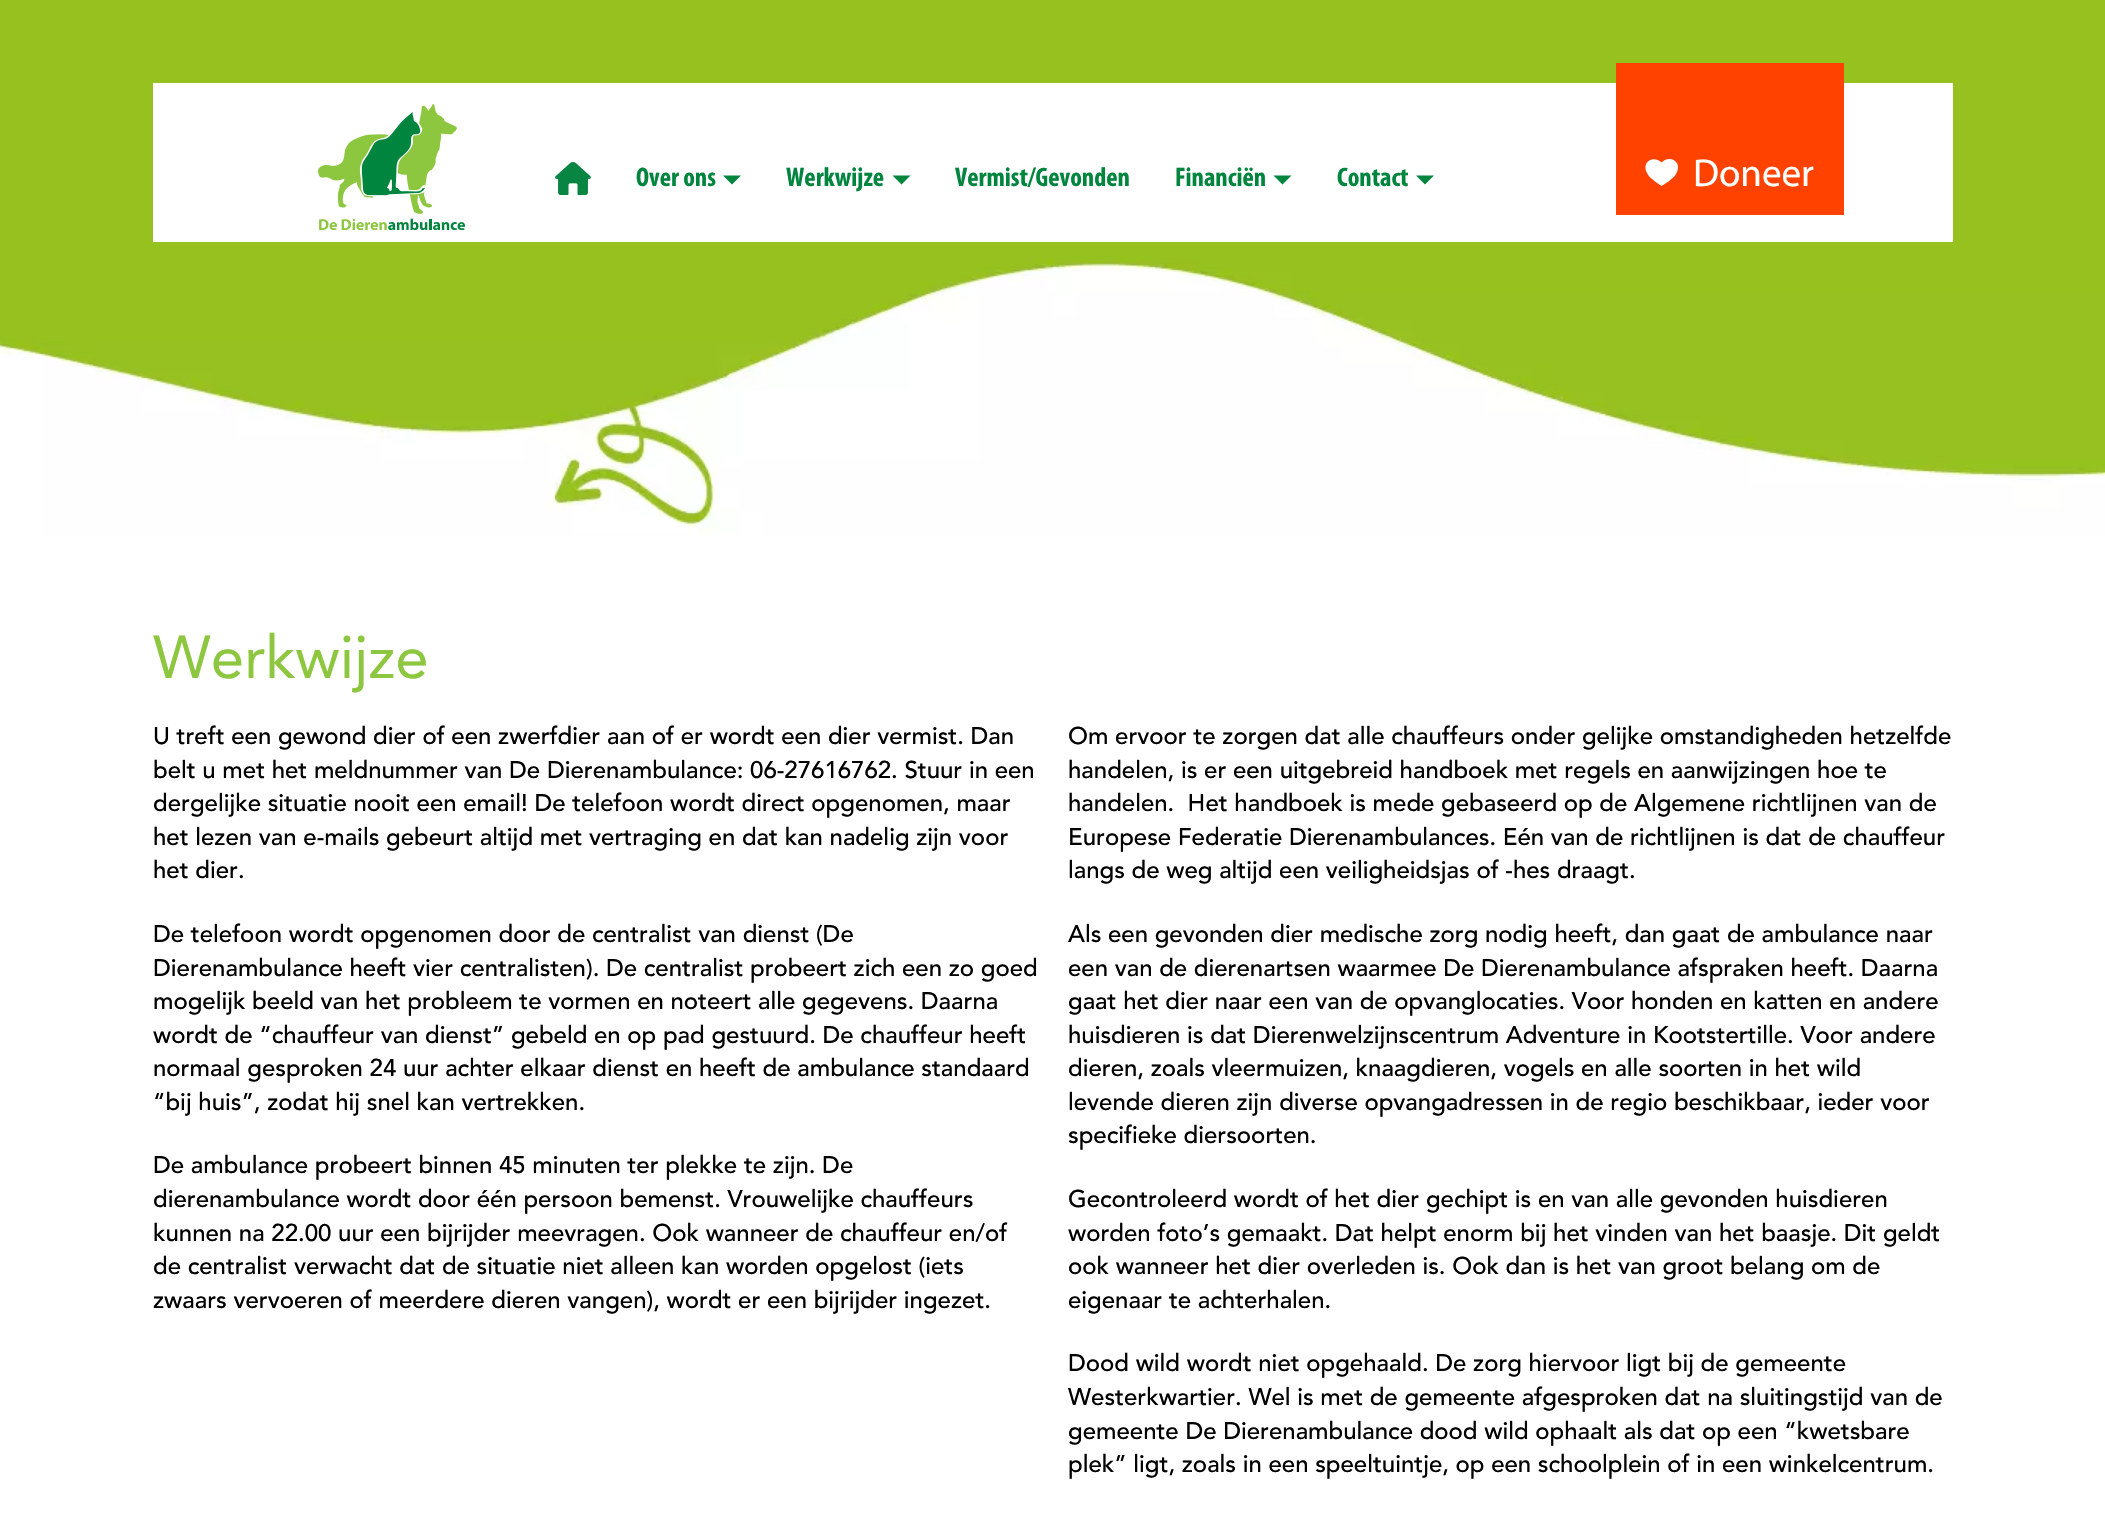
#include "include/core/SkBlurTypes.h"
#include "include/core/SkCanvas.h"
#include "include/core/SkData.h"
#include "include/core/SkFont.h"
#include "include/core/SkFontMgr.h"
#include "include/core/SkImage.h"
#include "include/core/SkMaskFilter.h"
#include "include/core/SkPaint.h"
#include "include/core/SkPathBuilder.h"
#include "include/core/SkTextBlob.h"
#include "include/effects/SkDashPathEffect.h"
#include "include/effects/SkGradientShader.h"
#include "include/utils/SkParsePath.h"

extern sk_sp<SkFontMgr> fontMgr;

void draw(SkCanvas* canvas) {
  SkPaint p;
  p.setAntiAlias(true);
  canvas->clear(SK_ColorWHITE);
  canvas->drawImageRect(SkImages::DeferredFromEncodedData(SkData::MakeFromFileName("images/1.png")), SkRect::MakeLTRB(0, 0, 2105, 535), SkSamplingOptions());
  p.setColor(SK_ColorWHITE);
  canvas->drawRect(SkRect::MakeLTRB(153, 83, 1953, 242), p);
  canvas->drawImageRect(SkImages::DeferredFromEncodedData(SkData::MakeFromFileName("images/2.png")), SkRect::MakeLTRB(318, 104, 465, 230), SkSamplingOptions());
  canvas->drawImageRect(SkImages::DeferredFromEncodedData(SkData::MakeFromFileName("images/3.png")), SkRect::MakeLTRB(555, 162, 591, 195), SkSamplingOptions());
  p.setColor(SkColorSetRGB(0, 133, 63));
  canvas->drawPath(SkPathBuilder().moveTo(723, 175.5f).lineTo(741, 175.5f).lineTo(732, 184.5f).close().detach(), p);
  canvas->drawPath(SkPathBuilder().moveTo(892.5f, 175.5f).lineTo(910.5f, 175.5f).lineTo(901.5f, 184.5f).close().detach(), p);
  canvas->drawPath(SkPathBuilder().moveTo(1273.5f, 175.5f).lineTo(1291.5f, 175.5f).lineTo(1282.5f, 184.5f).close().detach(), p);
  canvas->drawPath(SkPathBuilder().moveTo(1416, 175.5f).lineTo(1434, 175.5f).lineTo(1425, 184.5f).close().detach(), p);
  p.setColor(SkColorSetRGB(255, 66, 0));
  canvas->drawRect(SkRect::MakeLTRB(1616, 63, 1844, 215), p);
  p.setColor(SK_ColorWHITE);
  canvas->drawPath(SkPathBuilder().moveTo(1678, 167).close().moveTo(1661.5f, 186).lineTo(1655, 181.5f).cubicTo(1652, 179, 1648.5f, 176.5f, 1647, 173).cubicTo(1641, 162, 1653.5f, 154.5f, 1661.5f, 162.5f).cubicTo(1670, 154, 1682.5f, 162, 1676.5f, 173).cubicTo(1675, 176.5f, 1671.5f, 179, 1668.5f, 181.5f).close().detach(), p);
  SkFont font1(fontMgr->matchFamilyStyle("Myriad", SkFontStyle::Bold()), 27);
  font1.setSubpixel(true);
  p.setColor(SkColorSetRGB(0, 133, 63));
  canvas->drawString("Over ons", 636, 186, font1, p);
  canvas->drawString("Werkwijze", 786, 186, font1, p);
  canvas->drawString("Vermist/Gevonden", 955, 186, font1, p);
  canvas->drawString("Financiën", 1175, 186, font1, p);
  canvas->drawString("Contact", 1337, 186, font1, p);
  SkFont font2(fontMgr->matchFamilyStyle("Myriad", SkFontStyle::Normal()), 39);
  font2.setSubpixel(true);
  p.setColor(SK_ColorWHITE);
  canvas->drawString("Doneer", 1693, 186, font2, p);
  SkFont font3(fontMgr->matchFamilyStyle("Avenir", SkFontStyle::Normal()), 60);
  font3.setSubpixel(true);
  p.setColor(SkColorSetRGB(141, 198, 63));
  canvas->drawString("Werkwijze", 153, 678, font3, p);
  SkFont font4(fontMgr->matchFamilyStyle("Avenir", SkFontStyle(500, SkFontStyle::kNormal_Width, SkFontStyle::kUpright_Slant)), 24);
  font4.setSubpixel(true);
  p.setColor(SK_ColorBLACK);
  canvas->drawString("U treft een gewond dier of een zwerfdier aan of er wordt een dier vermist. Dan", 153, 744, font4, p);
  canvas->drawString("belt u met het meldnummer van De Dierenambulance: 06-27616762. Stuur in een", 153, 778, font4, p);
  canvas->drawString("dergelijke situatie nooit een email! De telefoon wordt direct opgenomen, maar", 153, 811, font4, p);
  canvas->drawString("het lezen van e-mails gebeurt altijd met vertraging en dat kan nadelig zijn voor", 153, 845, font4, p);
  canvas->drawString("het dier.", 153, 878, font4, p);
  canvas->drawString("De telefoon wordt opgenomen door de centralist van dienst (De", 153, 942, font4, p);
  canvas->drawString("Dierenambulance heeft vier centralisten). De centralist probeert zich een zo goed", 153, 976, font4, p);
  canvas->drawString("mogelijk beeld van het probleem te vormen en noteert alle gegevens. Daarna", 153, 1009, font4, p);
  canvas->drawString("wordt de “chauffeur van dienst” gebeld en op pad gestuurd. De chauffeur heeft", 153, 1043, font4, p);
  canvas->drawString("normaal gesproken 24 uur achter elkaar dienst en heeft de ambulance standaard", 153, 1076, font4, p);
  canvas->drawString("“bij huis”, zodat hij snel kan vertrekken.", 153, 1110, font4, p);
  canvas->drawString("De ambulance probeert binnen 45 minuten ter plekke te zijn. De", 153, 1173, font4, p);
  canvas->drawString("dierenambulance wordt door één persoon bemenst. Vrouwelijke chauffeurs", 153, 1207, font4, p);
  canvas->drawString("kunnen na 22.00 uur een bijrijder meevragen. Ook wanneer de chauffeur en/of", 153, 1241, font4, p);
  canvas->drawString("de centralist verwacht dat de situatie niet alleen kan worden opgelost (iets", 153, 1274, font4, p);
  canvas->drawString("zwaars vervoeren of meerdere dieren vangen), wordt er een bijrijder ingezet.", 153, 1308, font4, p);
  canvas->drawString("Om ervoor te zorgen dat alle chauffeurs onder gelijke omstandigheden hetzelfde", 1068, 744, font4, p);
  canvas->drawString("handelen, is er een uitgebreid handboek met regels en aanwijzingen hoe te", 1068, 778, font4, p);
  canvas->drawString("handelen.  Het handboek is mede gebaseerd op de Algemene richtlijnen van de", 1068, 811, font4, p);
  canvas->drawString("Europese Federatie Dierenambulances. Eén van de richtlijnen is dat de chauffeur", 1068, 845, font4, p);
  canvas->drawString("langs de weg altijd een veiligheidsjas of -hes draagt.", 1068, 878, font4, p);
  canvas->drawString("Als een gevonden dier medische zorg nodig heeft, dan gaat de ambulance naar", 1068, 942, font4, p);
  canvas->drawString("een van de dierenartsen waarmee De Dierenambulance afspraken heeft. Daarna", 1068, 976, font4, p);
  canvas->drawString("gaat het dier naar een van de opvanglocaties. Voor honden en katten en andere", 1068, 1009, font4, p);
  canvas->drawString("huisdieren is dat Dierenwelzijnscentrum Adventure in Kootstertille. Voor andere", 1068, 1043, font4, p);
  canvas->drawString("dieren, zoals vleermuizen, knaagdieren, vogels en alle soorten in het wild", 1068, 1076, font4, p);
  canvas->drawString("levende dieren zijn diverse opvangadressen in de regio beschikbaar, ieder voor", 1068, 1110, font4, p);
  canvas->drawString("specifieke diersoorten.", 1068, 1143, font4, p);
  canvas->drawString("Gecontroleerd wordt of het dier gechipt is en van alle gevonden huisdieren", 1068, 1207, font4, p);
  canvas->drawString("worden foto’s gemaakt. Dat helpt enorm bij het vinden van het baasje. Dit geldt", 1068, 1241, font4, p);
  canvas->drawString("ook wanneer het dier overleden is. Ook dan is het van groot belang om de", 1068, 1274, font4, p);
  canvas->drawString("eigenaar te achterhalen.", 1068, 1308, font4, p);
  canvas->drawString("Dood wild wordt niet opgehaald. De zorg hiervoor ligt bij de gemeente", 1068, 1371, font4, p);
  canvas->drawString("Westerkwartier. Wel is met de gemeente afgesproken dat na sluitingstijd van de", 1068, 1405, font4, p);
  canvas->drawString("gemeente De Dierenambulance dood wild ophaalt als dat op een “kwetsbare", 1068, 1439, font4, p);
  canvas->drawString("plek” ligt, zoals in een speeltuintje, op een schoolplein of in een winkelcentrum.", 1068, 1472, font4, p);
}
